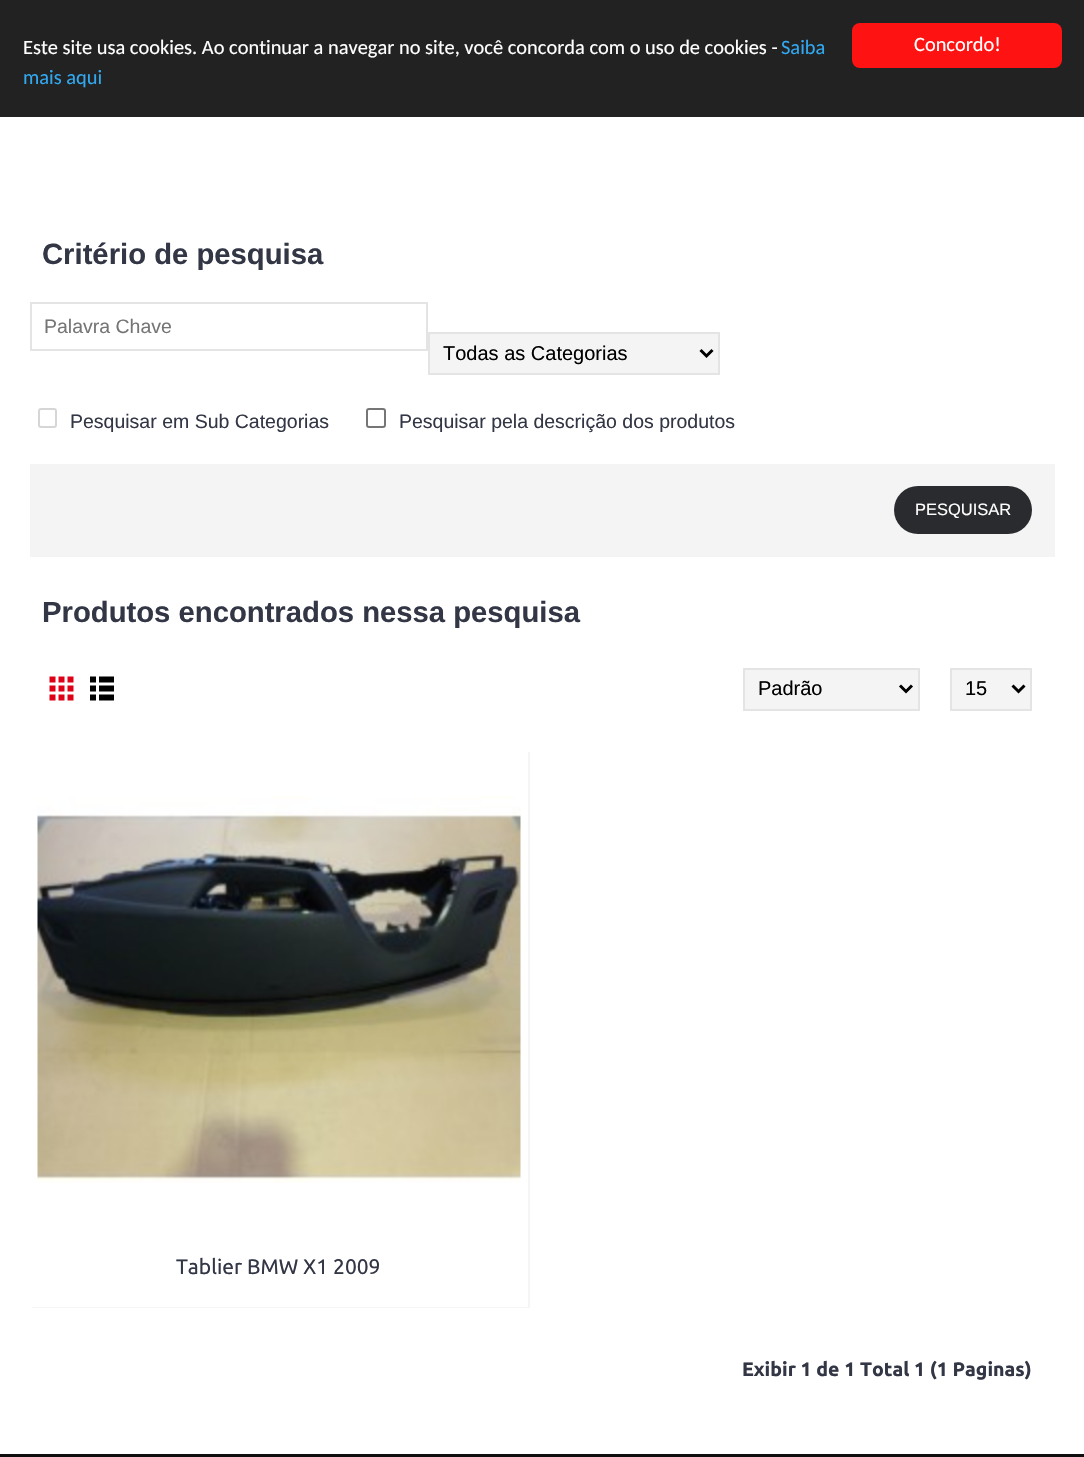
#include "include/core/SkBlurTypes.h"
#include "include/core/SkCanvas.h"
#include "include/core/SkData.h"
#include "include/core/SkFont.h"
#include "include/core/SkFontMgr.h"
#include "include/core/SkImage.h"
#include "include/core/SkMaskFilter.h"
#include "include/core/SkPaint.h"
#include "include/core/SkPathBuilder.h"
#include "include/core/SkTextBlob.h"
#include "include/effects/SkDashPathEffect.h"
#include "include/effects/SkGradientShader.h"
#include "include/utils/SkParsePath.h"

extern sk_sp<SkFontMgr> fontMgr;

void draw(SkCanvas* canvas) {
  SkPaint p;
  p.setAntiAlias(true);
  canvas->clear(SK_ColorWHITE);
  p.setColor(SkColorSetRGB(34, 34, 34));
  canvas->drawRect(SkRect::MakeLTRB(0, 0, 1084, 117), p);
  p.setColor(SkColorSetRGB(255, 18, 18));
  canvas->drawRoundRect(SkRect::MakeLTRB(852, 23, 1062, 68), 8, 8, p);
  p.setStyle(SkPaint::kStroke_Style);
  p.setStrokeWidth(2);
  p.setColor(SkColorSetRGB(228, 228, 228));
  canvas->drawRect(SkRect::MakeLTRB(31, 303, 427, 350), p);
  p.setStyle(SkPaint::kFill_Style);
  p.setColor(SkColorSetRGB(244, 244, 244));
  canvas->drawRect(SkRect::MakeLTRB(429, 333, 719, 374), p);
  p.setStyle(SkPaint::kStroke_Style);
  p.setColor(SkColorSetRGB(228, 228, 228));
  canvas->drawRect(SkRect::MakeLTRB(429, 333, 719, 374), p);
  p.setStrokeWidth(3);
  p.setColor(SK_ColorBLACK);
  canvas->drawPath(SkPathBuilder().moveTo(700.5f, 350).lineTo(706.5f, 356).lineTo(712.5f, 350).detach(), p);
  p.setStrokeWidth(2);
  p.setColor(SkColorSetRGB(214, 214, 214));
  canvas->drawRoundRect(SkRect::MakeLTRB(39, 409, 56, 427), 2, 2, p);
  p.setColor(SkColorSetRGB(118, 118, 118));
  canvas->drawRoundRect(SkRect::MakeLTRB(367, 409, 385, 427), 2, 2, p);
  p.setStyle(SkPaint::kFill_Style);
  p.setColor(SkColorSetRGB(244, 244, 244));
  canvas->drawRect(SkRect::MakeLTRB(30, 464, 1055, 557), p);
  p.setColor(SkColorSetRGB(42, 43, 46));
  canvas->drawRoundRect(SkRect::MakeLTRB(894, 486, 1032, 534), 24, 24, p);
  canvas->drawImageRect(SkImages::DeferredFromEncodedData(SkData::MakeFromFileName("images/1.png")), SkRect::MakeLTRB(49, 676, 74, 701), SkSamplingOptions());
  canvas->drawImageRect(SkImages::DeferredFromEncodedData(SkData::MakeFromFileName("images/2.png")), SkRect::MakeLTRB(90, 676, 114, 701), SkSamplingOptions());
  p.setColor(SkColorSetRGB(244, 244, 244));
  canvas->drawRect(SkRect::MakeLTRB(744, 669, 919, 710), p);
  p.setStyle(SkPaint::kStroke_Style);
  p.setColor(SkColorSetRGB(228, 228, 228));
  canvas->drawRect(SkRect::MakeLTRB(744, 669, 919, 710), p);
  p.setStrokeWidth(3);
  p.setColor(SK_ColorBLACK);
  canvas->drawPath(SkPathBuilder().moveTo(900, 685.5f).lineTo(906, 691.5f).lineTo(912, 685.5f).detach(), p);
  p.setStyle(SkPaint::kFill_Style);
  p.setColor(SkColorSetRGB(244, 244, 244));
  canvas->drawRect(SkRect::MakeLTRB(951, 669, 1031, 710), p);
  p.setStyle(SkPaint::kStroke_Style);
  p.setStrokeWidth(2);
  p.setColor(SkColorSetRGB(228, 228, 228));
  canvas->drawRect(SkRect::MakeLTRB(951, 669, 1031, 710), p);
  p.setStrokeWidth(3);
  p.setColor(SK_ColorBLACK);
  canvas->drawPath(SkPathBuilder().moveTo(1012.5f, 685.5f).lineTo(1018.5f, 691.5f).lineTo(1024.5f, 685.5f).detach(), p);
  p.setStyle(SkPaint::kFill_Style);
  p.setColor(SkColorSetRGB(245, 245, 245));
  canvas->drawPath(SkPathBuilder().moveTo(32, 1306).lineTo(32, 1308).lineTo(530, 1308).lineTo(530, 752).lineTo(528, 752).lineTo(528, 1306).close().detach(), p);
  p.setColor(SK_ColorWHITE);
  canvas->drawRect(SkRect::MakeLTRB(32, 1306, 528, 1307), p);
  canvas->drawImageRect(SkImages::DeferredFromEncodedData(SkData::MakeFromFileName("images/3.png")), SkRect::MakeLTRB(37, 796, 521, 1183), SkSamplingOptions());
  p.setColor(SkColorSetRGB(15, 15, 15));
  canvas->drawRect(SkRect::MakeLTRB(0, 1454, 1084, 1457), p);
  SkFont font1(fontMgr->matchFamilyStyle("Carlito", SkFontStyle::Normal()), 20.4f);
  font1.setSubpixel(true);
  p.setColor(SK_ColorWHITE);
  canvas->drawString("Este site usa cookies. Ao continuar a navegar no site, você concorda com o uso de cookies -", 23, 54, font1, p);
  p.setColor(SkColorSetRGB(49, 168, 240));
  canvas->drawString("Saiba", 781, 54, font1, p);
  canvas->drawString("mais aqui", 23, 84, font1, p);
  p.setColor(SK_ColorWHITE);
  canvas->drawString("Concordo!", 914, 51, font1, p);
  SkFont font2(fontMgr->matchFamilyStyle("Liberation Sans", SkFontStyle::Bold()), 29.25f);
  font2.setSubpixel(true);
  p.setColor(SkColorSetRGB(51, 55, 69));
  canvas->drawString("Critério de pesquisa", 42, 264, font2, p);
  SkFont font3(fontMgr->matchFamilyStyle("Liberation Sans", SkFontStyle::Normal()), 19.5f);
  font3.setSubpixel(true);
  p.setColor(SkColorSetRGB(117, 117, 117));
  canvas->drawString("Palavra Chave", 44, 333, font3, p);
  SkFont font4(fontMgr->matchFamilyStyle("Liberation Sans", SkFontStyle::Normal()), 20);
  font4.setSubpixel(true);
  p.setColor(SK_ColorBLACK);
  canvas->drawString("Todas as Categorias", 443, 360, font4, p);
  p.setColor(SkColorSetRGB(51, 55, 69));
  canvas->drawString("Pesquisar em Sub Categorias", 70, 428, font3, p);
  canvas->drawString("Pesquisar pela descrição dos produtos", 399, 428, font3, p);
  SkFont font5(fontMgr->matchFamilyStyle("Liberation Sans", SkFontStyle::Normal()), 16.5f);
  font5.setSubpixel(true);
  p.setColor(SK_ColorWHITE);
  canvas->drawString("PESQUISAR", 915, 515, font5, p);
  p.setColor(SkColorSetRGB(51, 55, 69));
  canvas->drawString("Produtos encontrados nessa pesquisa", 42, 622, font2, p);
  p.setColor(SK_ColorBLACK);
  canvas->drawString("Padrão", 758, 695, font4, p);
  canvas->drawString("15", 965, 695, font4, p);
  SkFont font6(fontMgr->matchFamilyStyle("Ubuntu", SkFontStyle::Normal()), 21);
  font6.setSubpixel(true);
  p.setColor(SkColorSetRGB(51, 55, 69));
  canvas->drawString("Tablier BMW X1 2009", 176, 1274, font6, p);
  SkFont font7(fontMgr->matchFamilyStyle("Ubuntu", SkFontStyle::Bold()), 19.5f);
  font7.setSubpixel(true);
  canvas->drawString("Exibir 1 de 1 Total 1 (1 Paginas)", 742, 1376, font7, p);
}
